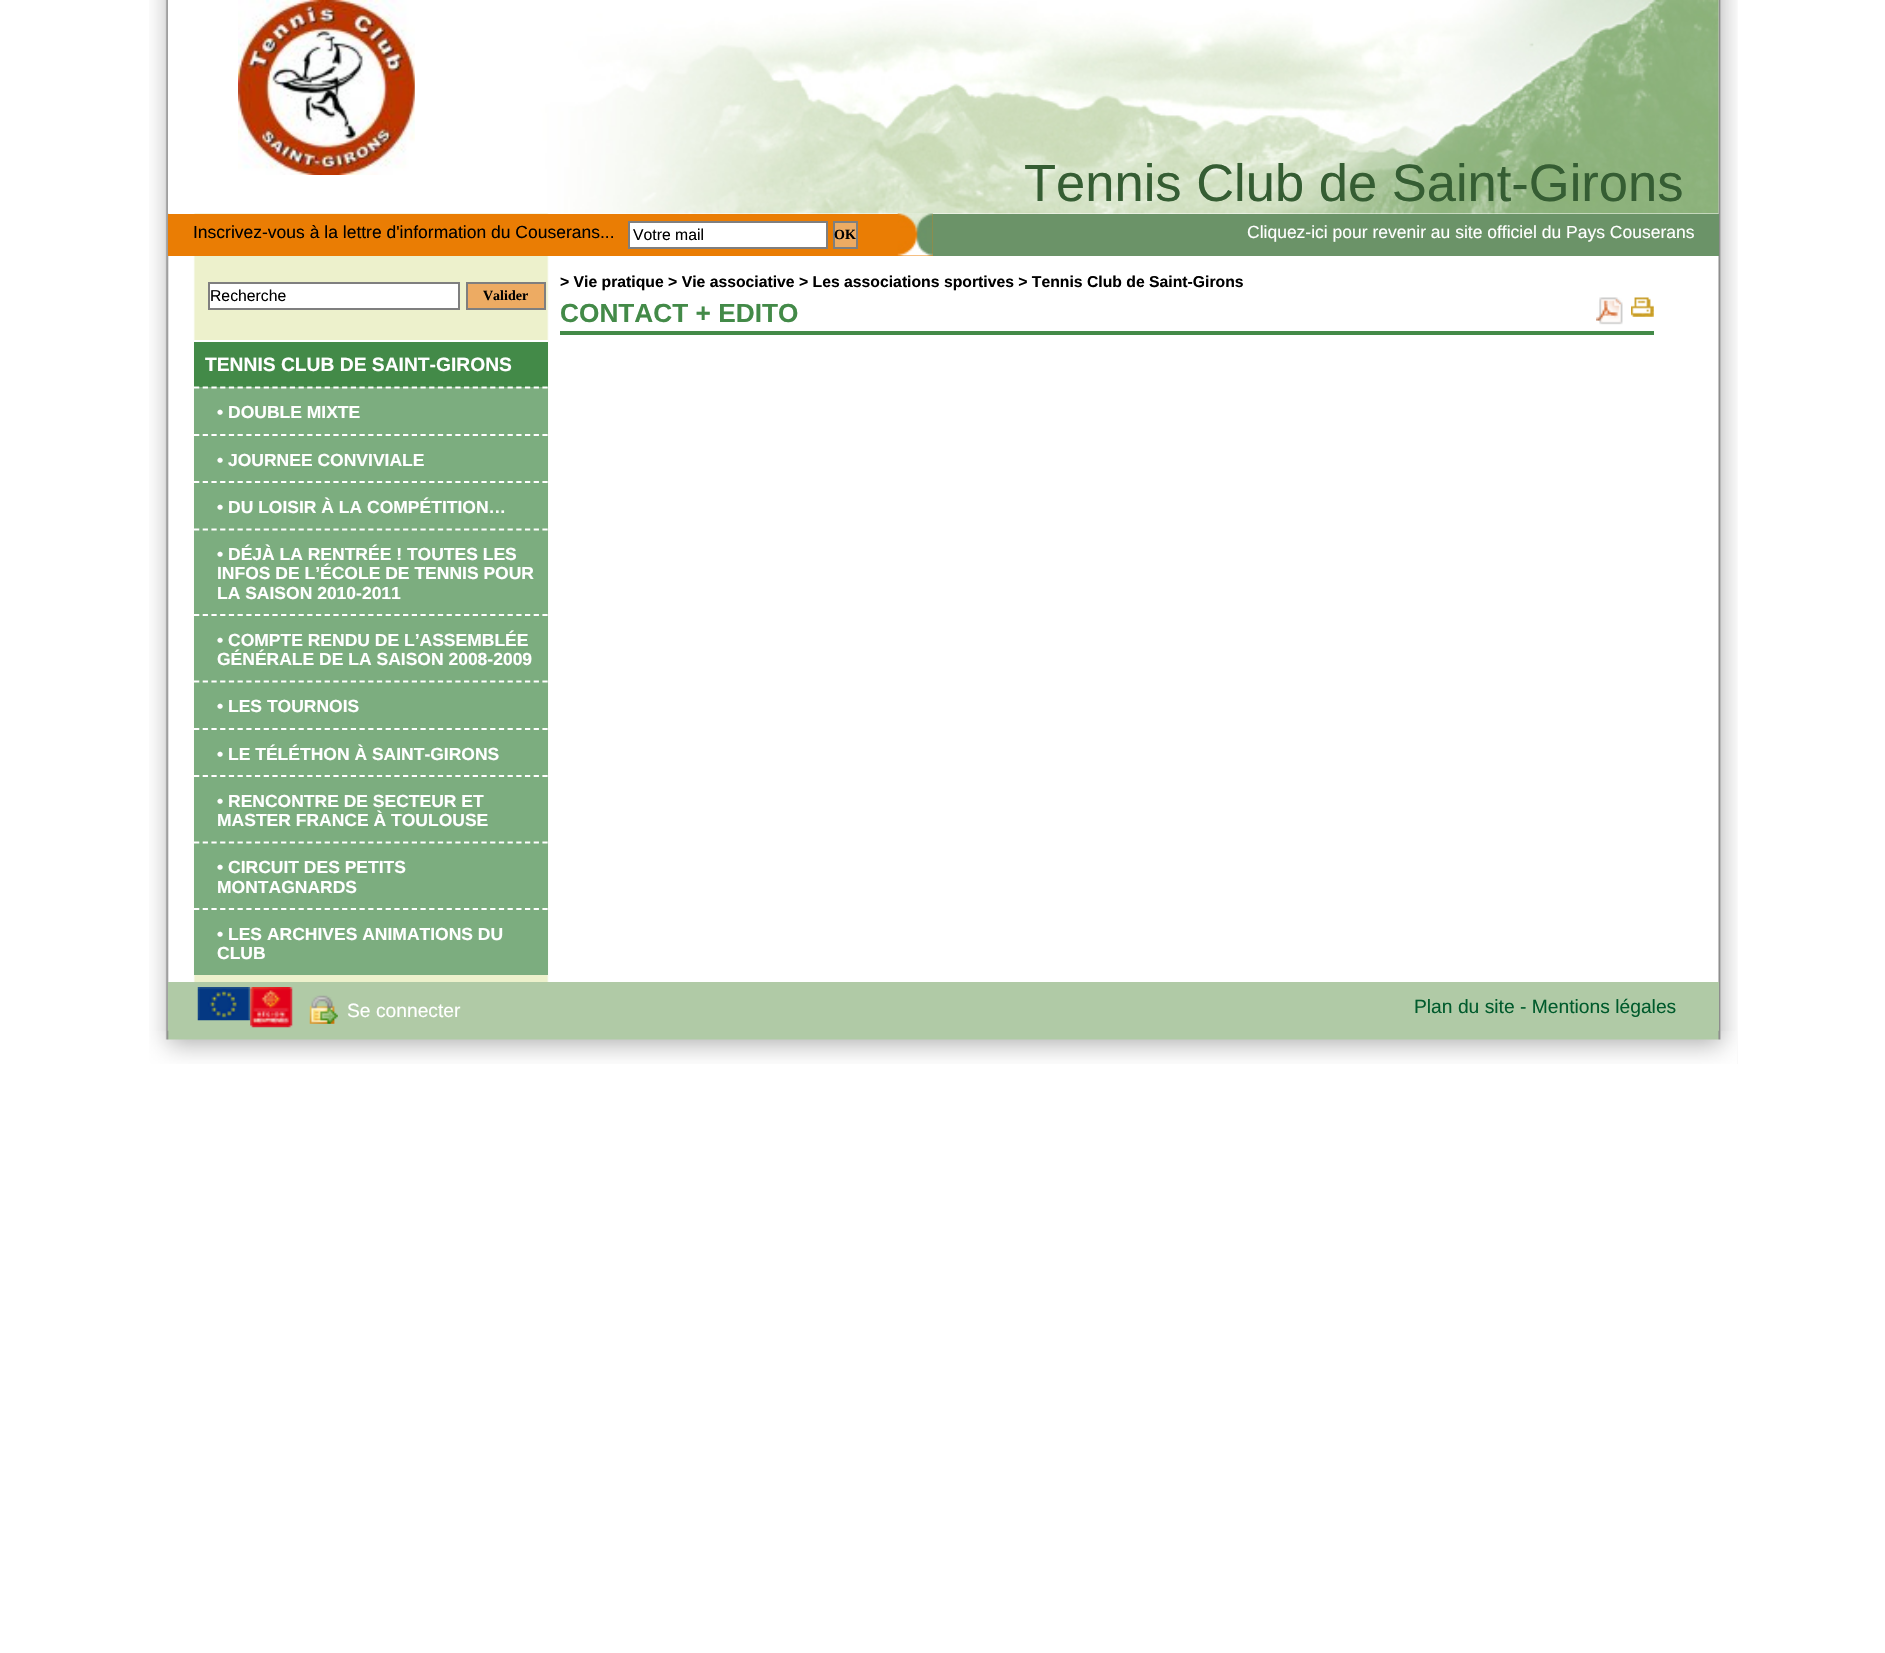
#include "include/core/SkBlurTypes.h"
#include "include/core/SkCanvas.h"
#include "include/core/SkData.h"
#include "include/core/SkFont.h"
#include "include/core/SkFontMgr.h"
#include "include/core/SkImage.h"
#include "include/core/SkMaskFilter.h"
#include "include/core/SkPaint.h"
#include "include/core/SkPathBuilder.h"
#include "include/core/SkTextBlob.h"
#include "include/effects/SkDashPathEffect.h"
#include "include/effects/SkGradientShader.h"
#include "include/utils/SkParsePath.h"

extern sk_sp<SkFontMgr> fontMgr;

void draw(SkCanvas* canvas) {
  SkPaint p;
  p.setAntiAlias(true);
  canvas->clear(SK_ColorWHITE);
  canvas->drawImageRect(SkImages::DeferredFromEncodedData(SkData::MakeFromFileName("images/1.png")), SkRect::MakeLTRB(149, 0, 1738, 1064), SkSamplingOptions());
  canvas->drawImageRect(SkImages::DeferredFromEncodedData(SkData::MakeFromFileName("images/4.png")), SkRect::MakeLTRB(897, 213, 933, 214), SkSamplingOptions());
  p.setColor(SkColorSetRGB(234, 125, 4));
  canvas->drawRect(SkRect::MakeLTRB(168, 214, 933, 256), p);
  canvas->drawImageRect(SkImages::DeferredFromEncodedData(SkData::MakeFromFileName("images/5.png")), SkRect::MakeLTRB(897, 213, 933, 256), SkSamplingOptions());
  canvas->drawImageRect(SkImages::DeferredFromEncodedData(SkData::MakeFromFileName("images/2.png")), SkRect::MakeLTRB(168, 0, 1719, 214), SkSamplingOptions());
  canvas->drawImageRect(SkImages::DeferredFromEncodedData(SkData::MakeFromFileName("images/3.png")), SkRect::MakeLTRB(238, 0, 415, 175), SkSamplingOptions());
  p.setColor(SkColorSetRGB(107, 147, 104));
  canvas->drawRect(SkRect::MakeLTRB(933, 214, 1719, 256), p);
  p.setColor(SK_ColorWHITE);
  canvas->drawRect(SkRect::MakeLTRB(629, 222, 827, 248), p);
  p.setStyle(SkPaint::kStroke_Style);
  p.setStrokeWidth(2);
  p.setColor(SkColorSetRGB(127, 127, 127));
  canvas->drawRect(SkRect::MakeLTRB(629, 222, 827, 248), p);
  p.setStyle(SkPaint::kFill_Style);
  p.setColor(SkColorSetRGB(237, 171, 99));
  canvas->drawRect(SkRect::MakeLTRB(834, 222, 857, 248), p);
  p.setStyle(SkPaint::kStroke_Style);
  p.setColor(SkColorSetRGB(127, 127, 127));
  canvas->drawRect(SkRect::MakeLTRB(834, 222, 857, 248), p);
  p.setStyle(SkPaint::kFill_Style);
  p.setColor(SK_ColorWHITE);
  canvas->drawRect(SkRect::MakeLTRB(209, 283, 459, 309), p);
  p.setStyle(SkPaint::kStroke_Style);
  p.setColor(SkColorSetRGB(127, 127, 127));
  canvas->drawRect(SkRect::MakeLTRB(209, 283, 459, 309), p);
  p.setStyle(SkPaint::kFill_Style);
  p.setColor(SkColorSetRGB(237, 171, 99));
  canvas->drawRect(SkRect::MakeLTRB(467, 283, 545, 309), p);
  p.setStyle(SkPaint::kStroke_Style);
  p.setColor(SkColorSetRGB(127, 127, 127));
  canvas->drawRect(SkRect::MakeLTRB(467, 283, 545, 309), p);
  p.setStyle(SkPaint::kFill_Style);
  p.setColor(SkColorSetRGB(67, 138, 72));
  canvas->drawRect(SkRect::MakeLTRB(194, 342, 548, 387), p);
  p.setColor(SK_ColorWHITE);
  canvas->drawRect(SkRect::MakeLTRB(194, 340, 548, 342), p);
  p.setColor(SkColorSetRGB(124, 173, 127));
  canvas->drawRect(SkRect::MakeLTRB(194, 387, 548, 975), p);
  p.setStyle(SkPaint::kStroke_Style);
  p.setStrokeWidth(1.8f);
  p.setColor(SK_ColorWHITE);
  p.setPathEffect(SkDashPathEffect::Make({{5.25f, 3.46f}}, 0));
  canvas->drawPath(SkPathBuilder().moveTo(194, 387.5f).lineTo(548, 387.5f).detach(), p);
  p.setPathEffect(nullptr);
  p.setPathEffect(SkDashPathEffect::Make({{5.25f, 3.46f}}, 0));
  canvas->drawPath(SkPathBuilder().moveTo(194, 435).lineTo(548, 435).detach(), p);
  p.setPathEffect(nullptr);
  p.setPathEffect(SkDashPathEffect::Make({{5.25f, 3.46f}}, 0));
  canvas->drawPath(SkPathBuilder().moveTo(194, 482).lineTo(548, 482).detach(), p);
  p.setPathEffect(nullptr);
  p.setPathEffect(SkDashPathEffect::Make({{5.25f, 3.46f}}, 0));
  canvas->drawPath(SkPathBuilder().moveTo(194, 529.5f).lineTo(548, 529.5f).detach(), p);
  p.setPathEffect(nullptr);
  p.setPathEffect(SkDashPathEffect::Make({{5.25f, 3.46f}}, 0));
  canvas->drawPath(SkPathBuilder().moveTo(194, 615).lineTo(548, 615).detach(), p);
  p.setPathEffect(nullptr);
  p.setPathEffect(SkDashPathEffect::Make({{5.25f, 3.46f}}, 0));
  canvas->drawPath(SkPathBuilder().moveTo(194, 681.5f).lineTo(548, 681.5f).detach(), p);
  p.setPathEffect(nullptr);
  p.setPathEffect(SkDashPathEffect::Make({{5.25f, 3.46f}}, 0));
  canvas->drawPath(SkPathBuilder().moveTo(194, 729).lineTo(548, 729).detach(), p);
  p.setPathEffect(nullptr);
  p.setPathEffect(SkDashPathEffect::Make({{5.25f, 3.46f}}, 0));
  canvas->drawPath(SkPathBuilder().moveTo(194, 776).lineTo(548, 776).detach(), p);
  p.setPathEffect(nullptr);
  p.setPathEffect(SkDashPathEffect::Make({{5.25f, 3.46f}}, 0));
  canvas->drawPath(SkPathBuilder().moveTo(194, 842.5f).lineTo(548, 842.5f).detach(), p);
  p.setPathEffect(nullptr);
  p.setPathEffect(SkDashPathEffect::Make({{5.25f, 3.46f}}, 0));
  canvas->drawPath(SkPathBuilder().moveTo(194, 909).lineTo(548, 909).detach(), p);
  p.setPathEffect(nullptr);
  p.setStyle(SkPaint::kFill_Style);
  p.setColor(SkColorSetRGB(67, 138, 72));
  canvas->drawRect(SkRect::MakeLTRB(560, 331, 1654, 335), p);
  canvas->drawImageRect(SkImages::DeferredFromEncodedData(SkData::MakeFromFileName("images/6.png")), SkRect::MakeLTRB(1596, 297, 1623, 325), SkSamplingOptions());
  canvas->drawImageRect(SkImages::DeferredFromEncodedData(SkData::MakeFromFileName("images/7.png")), SkRect::MakeLTRB(1631, 297, 1654, 317), SkSamplingOptions());
  p.setColor(SkColorSetRGB(176, 202, 166));
  canvas->drawRect(SkRect::MakeLTRB(168, 982, 1719, 1031), p);
  canvas->drawImageRect(SkImages::DeferredFromEncodedData(SkData::MakeFromFileName("images/8.png")), SkRect::MakeLTRB(197, 987, 251, 1021), SkSamplingOptions());
  canvas->drawImageRect(SkImages::DeferredFromEncodedData(SkData::MakeFromFileName("images/9.png")), SkRect::MakeLTRB(250, 987, 293, 1028), SkSamplingOptions());
  canvas->drawImageRect(SkImages::DeferredFromEncodedData(SkData::MakeFromFileName("images/10.png")), SkRect::MakeLTRB(309, 995, 338, 1024), SkSamplingOptions());
  canvas->drawImageRect(SkImages::DeferredFromEncodedData(SkData::MakeFromFileName("images/11.png")), SkRect::MakeLTRB(149, 1030, 1737, 1064), SkSamplingOptions());
  SkFont font1(fontMgr->matchFamilyStyle("Liberation Sans", SkFontStyle::Normal()), 52.5f);
  font1.setSubpixel(true);
  p.setColor(SkColorSetRGB(53, 93, 51));
  canvas->drawString("Tennis Club de Saint-Girons", 1024, 201, font1, p);
  SkFont font2(fontMgr->matchFamilyStyle("Liberation Sans", SkFontStyle::Normal()), 17.5f);
  font2.setSubpixel(true);
  p.setColor(SK_ColorBLACK);
  canvas->drawString("Inscrivez-vous à la lettre d'information du Couserans...", 193, 238, font2, p);
  SkFont font3(fontMgr->matchFamilyStyle("Liberation Sans", SkFontStyle::Normal()), 15.75f);
  font3.setSubpixel(true);
  canvas->drawString("Votre mail", 633, 240, font3, p);
  SkFont font4(fontMgr->matchFamilyStyle("Liberation Serif", SkFontStyle::Bold()), 14);
  font4.setSubpixel(true);
  canvas->drawString("OK", 834, 239, font4, p);
  p.setColor(SK_ColorWHITE);
  canvas->drawString("Cliquez-ici pour revenir au site officiel du Pays Couserans", 1247, 238, font2, p);
  p.setColor(SK_ColorBLACK);
  canvas->drawString("Recherche", 210, 301, font3, p);
  canvas->drawString("Valider", 483, 300, font4, p);
  SkFont font5(fontMgr->matchFamilyStyle("Liberation Sans", SkFontStyle::Bold()), 19.25f);
  font5.setSubpixel(true);
  p.setColor(SK_ColorWHITE);
  canvas->drawString("TENNIS CLUB DE SAINT-GIRONS", 205, 371, font5, p);
  SkFont font6(fontMgr->matchFamilyStyle("Liberation Sans", SkFontStyle::Bold()), 17.5f);
  font6.setSubpixel(true);
  canvas->drawString("• DOUBLE MIXTE", 217, 418, font6, p);
  canvas->drawString("• JOURNEE CONVIVIALE", 217, 466, font6, p);
  canvas->drawString("• DU LOISIR À LA COMPÉTITION…", 217, 513, font6, p);
  canvas->drawString("• DÉJÀ LA RENTRÉE ! TOUTES LES", 217, 560, font6, p);
  canvas->drawString("INFOS DE L’ÉCOLE DE TENNIS POUR", 217, 579, font6, p);
  canvas->drawString("LA SAISON 2010-2011", 217, 599, font6, p);
  canvas->drawString("• COMPTE RENDU DE L’ASSEMBLÉE", 217, 646, font6, p);
  canvas->drawString("GÉNÉRALE DE LA SAISON 2008-2009", 217, 665, font6, p);
  canvas->drawString("• LES TOURNOIS", 217, 712, font6, p);
  canvas->drawString("• LE TÉLÉTHON À SAINT-GIRONS", 217, 760, font6, p);
  canvas->drawString("• RENCONTRE DE SECTEUR ET", 217, 807, font6, p);
  canvas->drawString("MASTER FRANCE À TOULOUSE", 217, 826, font6, p);
  canvas->drawString("• CIRCUIT DES PETITS", 217, 873, font6, p);
  canvas->drawString("MONTAGNARDS", 217, 893, font6, p);
  canvas->drawString("• LES ARCHIVES ANIMATIONS DU", 217, 940, font6, p);
  canvas->drawString("CLUB", 217, 959, font6, p);
  SkFont font7(fontMgr->matchFamilyStyle("Liberation Sans", SkFontStyle::Bold()), 15.75f);
  font7.setSubpixel(true);
  p.setColor(SK_ColorBLACK);
  canvas->drawString("> Vie pratique > Vie associative > Les associations sportives > Tennis Club de Saint-Girons", 560, 287, font7, p);
  SkFont font8(fontMgr->matchFamilyStyle("Liberation Sans", SkFontStyle::Bold()), 26.25f);
  font8.setSubpixel(true);
  p.setColor(SkColorSetRGB(67, 138, 72));
  canvas->drawString("CONTACT + EDITO", 560, 322, font8, p);
  SkFont font9(fontMgr->matchFamilyStyle("Liberation Sans", SkFontStyle::Normal()), 19.25f);
  font9.setSubpixel(true);
  p.setColor(SK_ColorWHITE);
  canvas->drawString("Se connecter", 347, 1017, font9, p);
  p.setColor(SkColorSetRGB(0, 91, 44));
  canvas->drawString("Plan du site", 1414, 1013, font9, p);
  canvas->drawString("- Mentions légales", 1520, 1013, font9, p);
}
